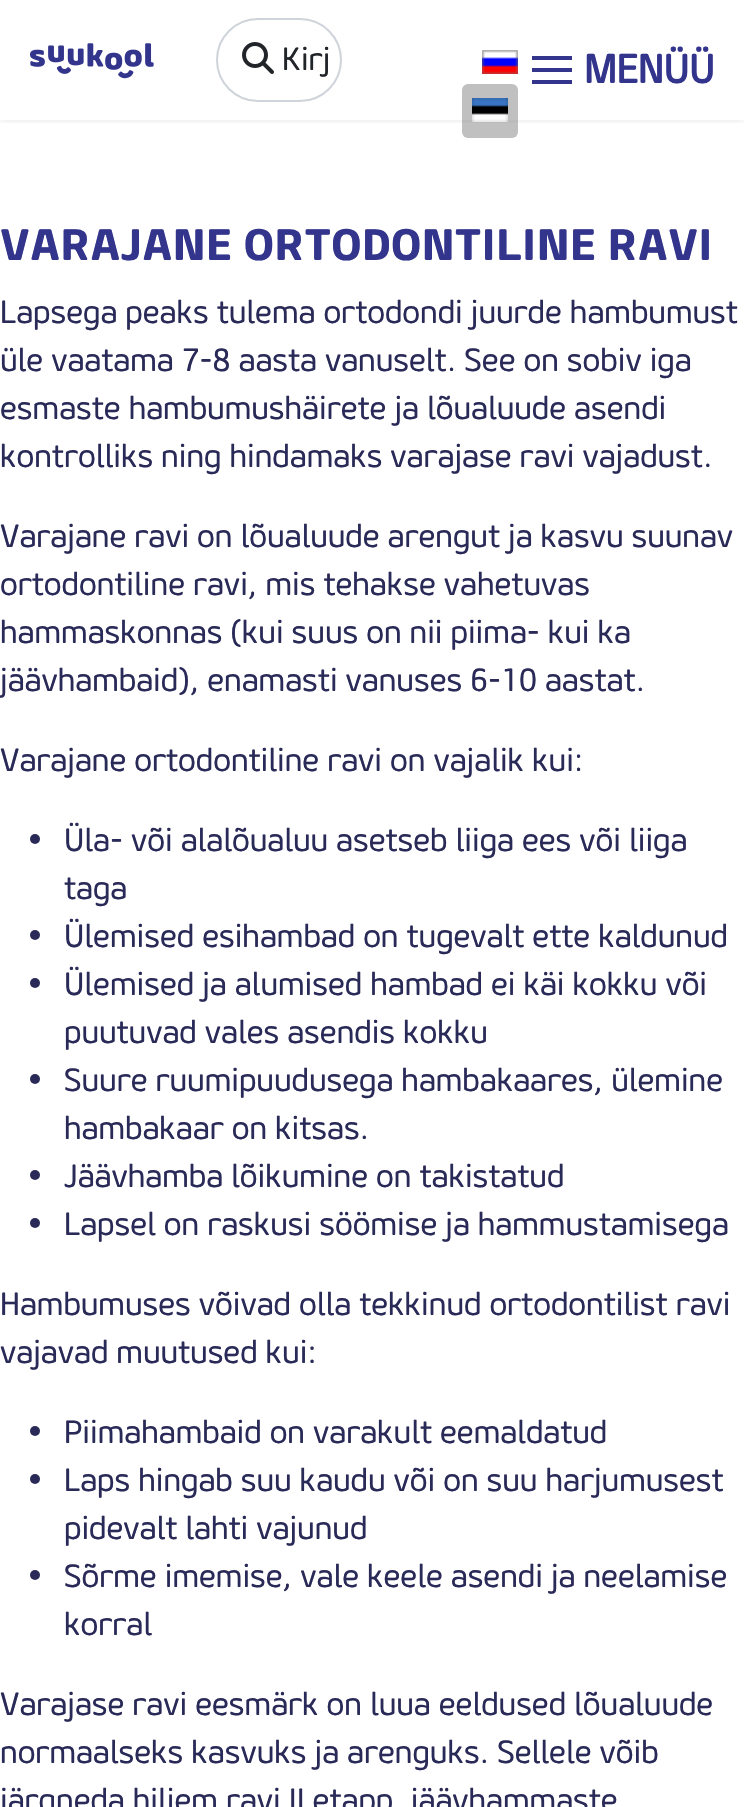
#include "include/core/SkBlurTypes.h"
#include "include/core/SkCanvas.h"
#include "include/core/SkData.h"
#include "include/core/SkFont.h"
#include "include/core/SkFontMgr.h"
#include "include/core/SkImage.h"
#include "include/core/SkMaskFilter.h"
#include "include/core/SkPaint.h"
#include "include/core/SkPathBuilder.h"
#include "include/core/SkTextBlob.h"
#include "include/effects/SkDashPathEffect.h"
#include "include/effects/SkGradientShader.h"
#include "include/utils/SkParsePath.h"

extern sk_sp<SkFontMgr> fontMgr;

void draw(SkCanvas* canvas) {
  SkPaint p;
  p.setAntiAlias(true);
  auto spacedText = [&](const char* s, float x, float y, const SkFont& font, const SkPaint& ink, float letter, float word) {
    std::vector<SkGlyphID> glyphs(font.countText(s, strlen(s), SkTextEncoding::kUTF8));
    std::vector<float> xs(glyphs.size());
    font.textToGlyphs(s, strlen(s), SkTextEncoding::kUTF8, glyphs);
    font.getXPos(glyphs, xs, x);
    float extra = 0;
    for (size_t i = 0; i < glyphs.size(); i++) {
      xs[i] += extra;
      extra += letter + word * (glyphs[i] == font.unicharToGlyph(' '));
    }
    canvas->drawTextBlob(SkTextBlob::MakeFromPosHGlyphs(glyphs, xs, y, font), 0, 0, ink);
  };
  canvas->clear(SK_ColorWHITE);
  canvas->save();
  canvas->clipRect(SkRect::MakeLTRB(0, 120, 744, 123));
  p.setColor(SkColorSetARGB(26, 0, 0, 0));
  p.setMaskFilter(SkMaskFilter::MakeBlur(kNormal_SkBlurStyle, 4));
  canvas->drawRect(SkRect::MakeLTRB(0, 0, 744, 120), p);
  p.setMaskFilter(nullptr);
  canvas->restore();
  canvas->drawImageRect(SkImages::DeferredFromEncodedData(SkData::MakeFromFileName("images/1.png")), SkRect::MakeLTRB(30, 43, 154, 79), SkSamplingOptions());
  p.setStyle(SkPaint::kStroke_Style);
  p.setStrokeWidth(2);
  p.setColor(SkColorSetRGB(206, 212, 218));
  canvas->drawRoundRect(SkRect::MakeLTRB(217, 19, 341, 101), 41, 41, p);
  canvas->drawImageRect(SkImages::DeferredFromEncodedData(SkData::MakeFromFileName("images/2.png")), SkRect::MakeLTRB(242, 42, 274, 74), SkSamplingOptions());
  canvas->drawImageRect(SkImages::DeferredFromEncodedData(SkData::MakeFromFileName("images/3.png")), SkRect::MakeLTRB(482, 50, 518, 74), SkSamplingOptions());
  p.setStyle(SkPaint::kFill_Style);
  p.setColor(SkColorSetARGB(128, 130, 130, 130));
  canvas->drawRoundRect(SkRect::MakeLTRB(462, 84, 518, 138), 6, 6, p);
  canvas->drawImageRect(SkImages::DeferredFromEncodedData(SkData::MakeFromFileName("images/4.png")), SkRect::MakeLTRB(472, 98, 508, 122), SkSamplingOptions());
  p.setColor(SkColorSetRGB(51, 52, 139));
  canvas->drawRect(SkRect::MakeLTRB(532, 56, 572, 60), p);
  canvas->drawRect(SkRect::MakeLTRB(532, 68, 572, 72), p);
  canvas->drawRect(SkRect::MakeLTRB(532, 80, 572, 84), p);
  p.setColor(SkColorSetRGB(42, 42, 88));
  canvas->drawCircle(35, 839, 5, p);
  canvas->drawCircle(35, 935, 5, p);
  canvas->drawCircle(35, 983, 5, p);
  canvas->drawCircle(35, 1079, 5, p);
  canvas->drawCircle(35, 1175, 5, p);
  canvas->drawCircle(35, 1223, 5, p);
  canvas->drawCircle(35, 1431, 5, p);
  canvas->drawCircle(35, 1479, 5, p);
  canvas->drawCircle(35, 1575, 5, p);
  SkFont font1(fontMgr->matchFamilyStyle("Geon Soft", SkFontStyle::Normal()), 32);
  font1.setSubpixel(true);
  p.setColor(SkColorSetRGB(33, 37, 41));
  canvas->drawString("Kirj", 282, 70, font1, p);
  SkFont font2(fontMgr->matchFamilyStyle("Geon Soft", SkFontStyle::Bold()), 40);
  font2.setSubpixel(true);
  p.setColor(SkColorSetRGB(51, 52, 139));
  canvas->drawString("MENÜÜ", 584, 83, font2, p);
  SkFont font3(fontMgr->matchFamilyStyle("Geon Soft", SkFontStyle(800, SkFontStyle::kNormal_Width, SkFontStyle::kUpright_Slant)), 44);
  font3.setSubpixel(true);
  spacedText("VARAJANE ORTODONTILINE RAVI", 0, 260, font3, p, 0.45f, 0);
  p.setColor(SkColorSetRGB(42, 42, 88));
  canvas->drawString("Lapsega peaks tulema ortodondi juurde hambumust", 0, 323, font1, p);
  canvas->drawString("üle vaatama 7-8 aasta vanuselt. See on sobiv iga", 0, 371, font1, p);
  canvas->drawString("esmaste hambumushäirete ja lõualuude asendi", 0, 419, font1, p);
  canvas->drawString("kontrolliks ning hindamaks varajase ravi vajadust.", 0, 467, font1, p);
  canvas->drawString("Varajane ravi on lõualuude arengut ja kasvu suunav", 0, 547, font1, p);
  canvas->drawString("ortodontiline ravi, mis tehakse vahetuvas", 0, 595, font1, p);
  canvas->drawString("hammaskonnas (kui suus on nii piima- kui ka", 0, 643, font1, p);
  canvas->drawString("jäävhambaid), enamasti vanuses 6-10 aastat.", 0, 691, font1, p);
  canvas->drawString("Varajane ortodontiline ravi on vajalik kui:", 0, 771, font1, p);
  canvas->drawString("Üla- või alalõualuu asetseb liiga ees või liiga", 64, 851, font1, p);
  canvas->drawString("taga", 64, 899, font1, p);
  canvas->drawString("Ülemised esihambad on tugevalt ette kaldunud", 64, 947, font1, p);
  canvas->drawString("Ülemised ja alumised hambad ei käi kokku või", 64, 995, font1, p);
  canvas->drawString("puutuvad vales asendis kokku", 64, 1043, font1, p);
  canvas->drawString("Suure ruumipuudusega hambakaares, ülemine", 64, 1091, font1, p);
  canvas->drawString("hambakaar on kitsas.", 64, 1139, font1, p);
  canvas->drawString("Jäävhamba lõikumine on takistatud", 64, 1187, font1, p);
  canvas->drawString("Lapsel on raskusi söömise ja hammustamisega", 64, 1235, font1, p);
  canvas->drawString("Hambumuses võivad olla tekkinud ortodontilist ravi", 0, 1315, font1, p);
  canvas->drawString("vajavad muutused kui:", 0, 1363, font1, p);
  canvas->drawString("Piimahambaid on varakult eemaldatud", 64, 1443, font1, p);
  canvas->drawString("Laps hingab suu kaudu või on suu harjumusest", 64, 1491, font1, p);
  canvas->drawString("pidevalt lahti vajunud", 64, 1539, font1, p);
  canvas->drawString("Sõrme imemise, vale keele asendi ja neelamise", 64, 1587, font1, p);
  canvas->drawString("korral", 64, 1635, font1, p);
  canvas->drawString("Varajase ravi eesmärk on luua eeldused lõualuude", 0, 1715, font1, p);
  canvas->drawString("normaalseks kasvuks ja arenguks. Sellele võib", 0, 1763, font1, p);
  canvas->drawString("järgneda hiljem ravi II etapp, jäävhammaste", 0, 1811, font1, p);
}
